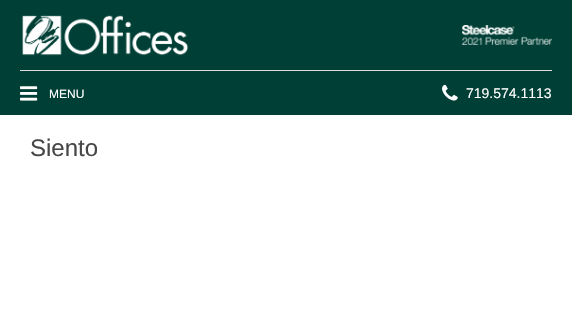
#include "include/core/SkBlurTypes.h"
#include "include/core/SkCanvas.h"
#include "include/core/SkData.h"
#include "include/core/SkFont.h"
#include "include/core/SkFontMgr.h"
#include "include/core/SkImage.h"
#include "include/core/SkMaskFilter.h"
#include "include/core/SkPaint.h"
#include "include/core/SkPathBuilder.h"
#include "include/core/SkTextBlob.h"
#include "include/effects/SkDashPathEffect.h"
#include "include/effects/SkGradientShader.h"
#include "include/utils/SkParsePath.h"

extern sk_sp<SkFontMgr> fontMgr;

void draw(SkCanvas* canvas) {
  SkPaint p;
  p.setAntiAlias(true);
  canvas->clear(SK_ColorWHITE);
  p.setColor(SkColorSetRGB(0, 63, 53));
  canvas->drawRect(SkRect::MakeLTRB(0, 0, 572, 115), p);
  canvas->drawImageRect(SkImages::DeferredFromEncodedData(SkData::MakeFromFileName("images/1.png")), SkRect::MakeLTRB(22, 15, 189, 56), SkSamplingOptions());
  canvas->drawImageRect(SkImages::DeferredFromEncodedData(SkData::MakeFromFileName("images/2.png")), SkRect::MakeLTRB(462, 25, 552, 45), SkSamplingOptions());
  p.setColor(SkColorSetRGB(221, 221, 221));
  canvas->drawRect(SkRect::MakeLTRB(20, 70, 552, 71), p);
  canvas->drawImageRect(SkImages::DeferredFromEncodedData(SkData::MakeFromFileName("images/3.png")), SkRect::MakeLTRB(20, 86, 38, 101), SkSamplingOptions());
  canvas->drawImageRect(SkImages::DeferredFromEncodedData(SkData::MakeFromFileName("images/4.png")), SkRect::MakeLTRB(442, 84, 458, 101), SkSamplingOptions());
  SkFont font1(fontMgr->matchFamilyStyle("Liberation Sans", SkFontStyle::Normal()), 12);
  font1.setSubpixel(true);
  p.setColor(SK_ColorWHITE);
  canvas->drawString("MENU", 49, 98, font1, p);
  SkFont font2(fontMgr->matchFamilyStyle("Liberation Sans", SkFontStyle::Normal()), 14);
  font2.setSubpixel(true);
  canvas->drawString("719.574.1113", 466, 98, font2, p);
  SkFont font3(fontMgr->matchFamilyStyle("Liberation Sans", SkFontStyle::Normal()), 24);
  font3.setSubpixel(true);
  p.setColor(SkColorSetRGB(71, 71, 71));
  canvas->drawString("Siento", 30, 156, font3, p);
}
